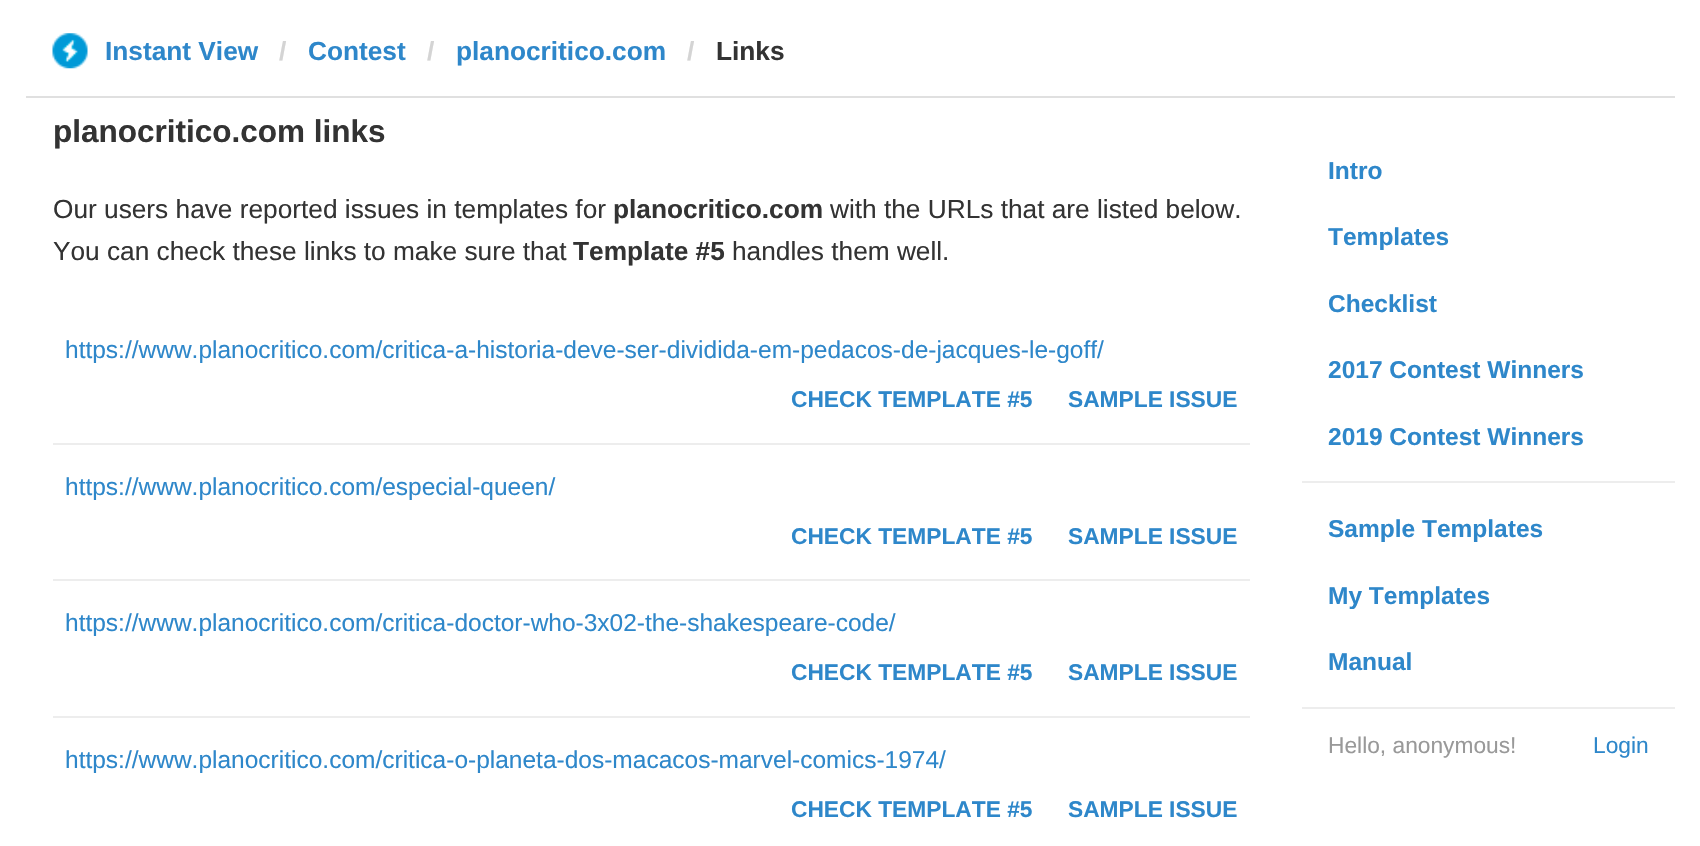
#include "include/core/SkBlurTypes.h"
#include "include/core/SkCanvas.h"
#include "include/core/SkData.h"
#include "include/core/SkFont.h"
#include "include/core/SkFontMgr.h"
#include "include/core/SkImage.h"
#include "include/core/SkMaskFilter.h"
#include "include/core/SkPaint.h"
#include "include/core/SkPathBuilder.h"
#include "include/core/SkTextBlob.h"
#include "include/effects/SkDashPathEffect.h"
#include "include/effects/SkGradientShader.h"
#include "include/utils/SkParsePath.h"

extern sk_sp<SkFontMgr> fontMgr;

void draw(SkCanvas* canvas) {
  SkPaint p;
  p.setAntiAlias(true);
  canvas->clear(SK_ColorWHITE);
  p.setColor(SkColorSetRGB(224, 224, 224));
  canvas->drawRect(SkRect::MakeLTRB(26, 96, 1675, 98), p);
  canvas->drawImageRect(SkImages::DeferredFromEncodedData(SkData::MakeFromFileName("images/1.png")), SkRect::MakeLTRB(52, 33, 88, 69), SkSamplingOptions());
  p.setColor(SkColorSetRGB(237, 237, 237));
  canvas->drawRect(SkRect::MakeLTRB(53, 443, 1250, 445), p);
  canvas->drawRect(SkRect::MakeLTRB(53, 579, 1250, 581), p);
  canvas->drawRect(SkRect::MakeLTRB(53, 716, 1250, 718), p);
  canvas->drawRect(SkRect::MakeLTRB(1302, 481, 1675, 483), p);
  canvas->drawRect(SkRect::MakeLTRB(1302, 707, 1675, 709), p);
  SkFont font1(fontMgr->matchFamilyStyle("Liberation Sans", SkFontStyle::Bold()), 26.25f);
  font1.setSubpixel(true);
  p.setColor(SkColorSetRGB(46, 135, 202));
  canvas->drawString("Instant View", 105, 60, font1, p);
  p.setColor(SkColorSetRGB(212, 212, 212));
  canvas->drawString("/", 279, 60, font1, p);
  p.setColor(SkColorSetRGB(46, 135, 202));
  canvas->drawString("Contest", 308, 60, font1, p);
  p.setColor(SkColorSetRGB(212, 212, 212));
  canvas->drawString("/", 427, 60, font1, p);
  p.setColor(SkColorSetRGB(46, 135, 202));
  canvas->drawString("planocritico.com", 456, 60, font1, p);
  p.setColor(SkColorSetRGB(212, 212, 212));
  canvas->drawString("/", 687, 60, font1, p);
  p.setColor(SkColorSetRGB(51, 51, 51));
  canvas->drawString("Links", 716, 60, font1, p);
  SkFont font2(fontMgr->matchFamilyStyle("Liberation Sans", SkFontStyle::Bold()), 31.5f);
  font2.setSubpixel(true);
  canvas->drawString("planocritico.com links", 53, 142, font2, p);
  SkFont font3(fontMgr->matchFamilyStyle("Liberation Sans", SkFontStyle::Normal()), 26.25f);
  font3.setSubpixel(true);
  canvas->drawString("Our users have reported issues in templates for", 53, 218, font3, p);
  canvas->drawString("planocritico.com", 613, 218, font1, p);
  canvas->drawString("with the URLs that are listed below.", 830, 218, font3, p);
  canvas->drawString("You can check these links to make sure that", 53, 260, font3, p);
  canvas->drawString("Template #5", 573, 260, font1, p);
  canvas->drawString("handles them well.", 732, 260, font3, p);
  SkFont font4(fontMgr->matchFamilyStyle("Liberation Sans", SkFontStyle::Normal()), 24.5f);
  font4.setSubpixel(true);
  p.setColor(SkColorSetRGB(46, 135, 202));
  canvas->drawString("https://www.planocritico.com/critica-a-historia-deve-ser-dividida-em-pedacos-de-jacques-le-goff/", 65, 358, font4, p);
  SkFont font5(fontMgr->matchFamilyStyle("Liberation Sans", SkFontStyle::Bold()), 22.75f);
  font5.setSubpixel(true);
  canvas->drawString("CHECK TEMPLATE #5", 791, 407, font5, p);
  canvas->drawString("SAMPLE ISSUE", 1068, 407, font5, p);
  canvas->drawString("https://www.planocritico.com/especial-queen/", 65, 495, font4, p);
  canvas->drawString("CHECK TEMPLATE #5", 791, 544, font5, p);
  canvas->drawString("SAMPLE ISSUE", 1068, 544, font5, p);
  canvas->drawString("https://www.planocritico.com/critica-doctor-who-3x02-the-shakespeare-code/", 65, 631, font4, p);
  canvas->drawString("CHECK TEMPLATE #5", 791, 680, font5, p);
  canvas->drawString("SAMPLE ISSUE", 1068, 680, font5, p);
  canvas->drawString("https://www.planocritico.com/critica-o-planeta-dos-macacos-marvel-comics-1974/", 65, 768, font4, p);
  canvas->drawString("CHECK TEMPLATE #5", 791, 817, font5, p);
  canvas->drawString("SAMPLE ISSUE", 1068, 817, font5, p);
  SkFont font6(fontMgr->matchFamilyStyle("Liberation Sans", SkFontStyle::Bold()), 24.5f);
  font6.setSubpixel(true);
  canvas->drawString("Intro", 1328, 179, font6, p);
  canvas->drawString("Templates", 1328, 245, font6, p);
  canvas->drawString("Checklist", 1328, 312, font6, p);
  canvas->drawString("2017 Contest Winners", 1328, 378, font6, p);
  canvas->drawString("2019 Contest Winners", 1328, 445, font6, p);
  canvas->drawString("Sample Templates", 1328, 537, font6, p);
  canvas->drawString("My Templates", 1328, 604, font6, p);
  canvas->drawString("Manual", 1328, 670, font6, p);
  SkFont font7(fontMgr->matchFamilyStyle("Liberation Sans", SkFontStyle::Normal()), 22.75f);
  font7.setSubpixel(true);
  p.setColor(SkColorSetRGB(153, 153, 153));
  canvas->drawString("Hello, anonymous!", 1328, 753, font7, p);
  p.setColor(SkColorSetRGB(46, 135, 202));
  canvas->drawString("Login", 1593, 753, font7, p);
}
